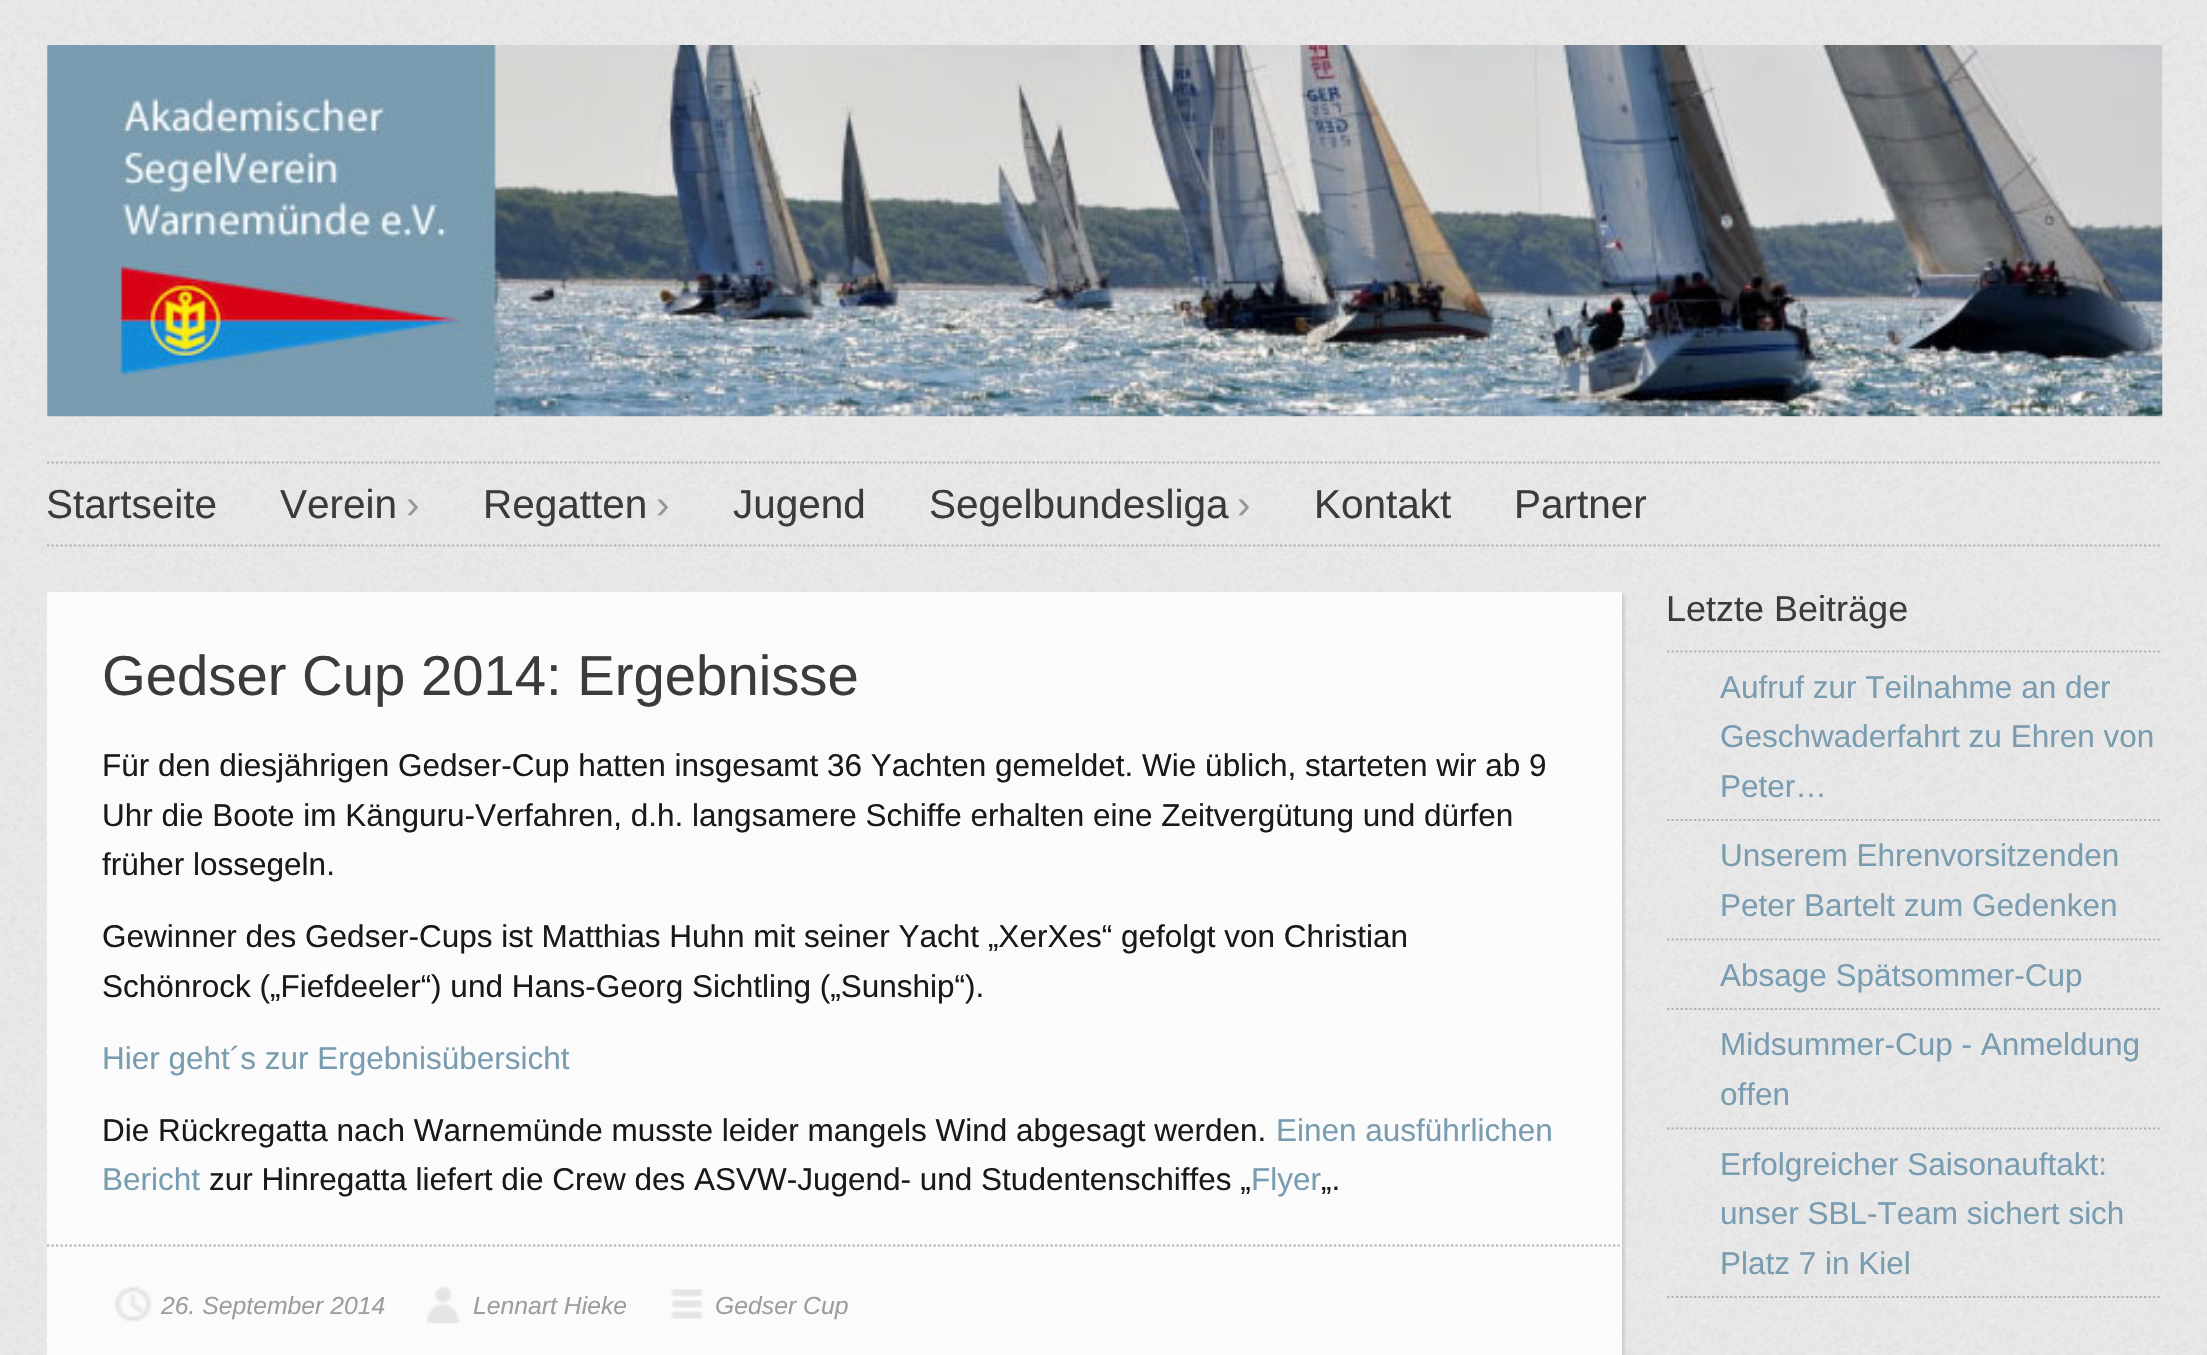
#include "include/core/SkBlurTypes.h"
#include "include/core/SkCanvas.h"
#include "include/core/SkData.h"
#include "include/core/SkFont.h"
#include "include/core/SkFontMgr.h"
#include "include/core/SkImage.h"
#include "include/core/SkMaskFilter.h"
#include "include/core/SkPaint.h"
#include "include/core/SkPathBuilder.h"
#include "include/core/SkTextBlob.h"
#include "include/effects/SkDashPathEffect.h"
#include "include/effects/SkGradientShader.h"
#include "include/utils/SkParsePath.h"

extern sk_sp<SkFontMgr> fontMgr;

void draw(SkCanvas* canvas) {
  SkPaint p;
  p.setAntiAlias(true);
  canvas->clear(SK_ColorWHITE);
  canvas->drawImageRect(SkImages::DeferredFromEncodedData(SkData::MakeFromFileName("images/1.png")), SkRect::MakeLTRB(0, 0, 2207, 1355), SkSamplingOptions());
  canvas->drawImageRect(SkImages::DeferredFromEncodedData(SkData::MakeFromFileName("images/2.png")), SkRect::MakeLTRB(47, 45, 2163, 417), SkSamplingOptions());
  p.setStyle(SkPaint::kStroke_Style);
  p.setStrokeWidth(2.2f);
  p.setColor(SkColorSetRGB(178, 178, 178));
  p.setPathEffect(SkDashPathEffect::Make({{2.25f, 2.25f}}, 0));
  canvas->drawPath(SkPathBuilder().moveTo(47, 462.5f).lineTo(2162, 462.5f).detach(), p);
  p.setPathEffect(nullptr);
  p.setPathEffect(SkDashPathEffect::Make({{2.25f, 2.25f}}, 0));
  canvas->drawPath(SkPathBuilder().moveTo(47, 545.5f).lineTo(2162, 545.5f).detach(), p);
  p.setPathEffect(nullptr);
  p.setStyle(SkPaint::kFill_Style);
  p.setColor(SkColorSetARGB(26, 0, 0, 0));
  p.setMaskFilter(SkMaskFilter::MakeBlur(kNormal_SkBlurStyle, 1));
  canvas->drawRect(SkRect::MakeLTRB(50, 594, 1625, 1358), p);
  p.setMaskFilter(nullptr);
  p.setColor(SkColorSetRGB(251, 251, 251));
  canvas->drawRect(SkRect::MakeLTRB(47, 592, 1622, 1355), p);
  p.setStyle(SkPaint::kStroke_Style);
  p.setColor(SkColorSetRGB(178, 178, 178));
  p.setPathEffect(SkDashPathEffect::Make({{2.25f, 2.25f}}, 0));
  canvas->drawPath(SkPathBuilder().moveTo(47, 1245.5f).lineTo(1622, 1245.5f).detach(), p);
  p.setPathEffect(nullptr);
  canvas->drawImageRect(SkImages::DeferredFromEncodedData(SkData::MakeFromFileName("images/3.png")), SkRect::MakeLTRB(115, 1286, 152, 1322), SkSamplingOptions());
  canvas->drawImageRect(SkImages::DeferredFromEncodedData(SkData::MakeFromFileName("images/4.png")), SkRect::MakeLTRB(426, 1286, 460, 1324), SkSamplingOptions());
  canvas->drawImageRect(SkImages::DeferredFromEncodedData(SkData::MakeFromFileName("images/5.png")), SkRect::MakeLTRB(670, 1289, 703, 1319), SkSamplingOptions());
  p.setPathEffect(SkDashPathEffect::Make({{2.25f, 2.25f}}, 0));
  canvas->drawPath(SkPathBuilder().moveTo(1667, 651.5f).lineTo(2162, 651.5f).detach(), p);
  p.setPathEffect(nullptr);
  p.setPathEffect(SkDashPathEffect::Make({{2.25f, 2.25f}}, 0));
  canvas->drawPath(SkPathBuilder().moveTo(1667, 820).lineTo(2162, 820).detach(), p);
  p.setPathEffect(nullptr);
  p.setPathEffect(SkDashPathEffect::Make({{2.25f, 2.25f}}, 0));
  canvas->drawPath(SkPathBuilder().moveTo(1667, 939.5f).lineTo(2162, 939.5f).detach(), p);
  p.setPathEffect(nullptr);
  p.setPathEffect(SkDashPathEffect::Make({{2.25f, 2.25f}}, 0));
  canvas->drawPath(SkPathBuilder().moveTo(1667, 1009).lineTo(2162, 1009).detach(), p);
  p.setPathEffect(nullptr);
  p.setPathEffect(SkDashPathEffect::Make({{2.25f, 2.25f}}, 0));
  canvas->drawPath(SkPathBuilder().moveTo(1667, 1128.5f).lineTo(2162, 1128.5f).detach(), p);
  p.setPathEffect(nullptr);
  p.setPathEffect(SkDashPathEffect::Make({{2.25f, 2.25f}}, 0));
  canvas->drawPath(SkPathBuilder().moveTo(1667, 1297).lineTo(2162, 1297).detach(), p);
  p.setPathEffect(nullptr);
  SkFont font1(fontMgr->matchFamilyStyle("Liberation Sans", SkFontStyle::Normal()), 40.5f);
  font1.setSubpixel(true);
  p.setStyle(SkPaint::kFill_Style);
  p.setColor(SkColorSetRGB(59, 59, 59));
  canvas->drawString("Startseite", 46, 518, font1, p);
  canvas->drawString("Verein", 280, 518, font1, p);
  p.setColor(SkColorSetRGB(151, 151, 151));
  canvas->drawString("›", 406, 518, font1, p);
  p.setColor(SkColorSetRGB(59, 59, 59));
  canvas->drawString("Regatten", 483, 518, font1, p);
  p.setColor(SkColorSetRGB(151, 151, 151));
  canvas->drawString("›", 656, 518, font1, p);
  p.setColor(SkColorSetRGB(59, 59, 59));
  canvas->drawString("Jugend", 733, 518, font1, p);
  canvas->drawString("Segelbundesliga", 929, 518, font1, p);
  p.setColor(SkColorSetRGB(151, 151, 151));
  canvas->drawString("›", 1237, 518, font1, p);
  p.setColor(SkColorSetRGB(59, 59, 59));
  canvas->drawString("Kontakt", 1314, 518, font1, p);
  canvas->drawString("Partner", 1514, 518, font1, p);
  SkFont font2(fontMgr->matchFamilyStyle("Liberation Sans", SkFontStyle::Normal()), 56.25f);
  font2.setSubpixel(true);
  canvas->drawString("Gedser Cup 2014: Ergebnisse", 102, 695, font2, p);
  SkFont font3(fontMgr->matchFamilyStyle("Liberation Sans", SkFontStyle::Normal()), 31.5f);
  font3.setSubpixel(true);
  p.setColor(SkColorSetRGB(25, 25, 25));
  canvas->drawString("Für den diesjährigen Gedser-Cup hatten insgesamt 36 Yachten gemeldet. Wie üblich, starteten wir ab 9", 102, 776, font3, p);
  canvas->drawString("Uhr die Boote im Känguru-Verfahren, d.h. langsamere Schiffe erhalten eine Zeitvergütung und dürfen", 102, 826, font3, p);
  canvas->drawString("früher lossegeln.", 102, 875, font3, p);
  canvas->drawString("Gewinner des Gedser-Cups ist Matthias Huhn mit seiner Yacht „XerXes“ gefolgt von Christian", 102, 947, font3, p);
  canvas->drawString("Schönrock („Fiefdeeler“) und Hans-Georg Sichtling („Sunship“).", 102, 997, font3, p);
  p.setColor(SkColorSetRGB(121, 156, 177));
  canvas->drawString("Hier geht´s zur Ergebnisübersicht", 102, 1069, font3, p);
  p.setColor(SkColorSetRGB(25, 25, 25));
  canvas->drawString("Die Rückregatta nach Warnemünde musste leider mangels Wind abgesagt werden.", 102, 1141, font3, p);
  p.setColor(SkColorSetRGB(121, 156, 177));
  canvas->drawString("Einen ausführlichen", 1276, 1141, font3, p);
  canvas->drawString("Bericht", 102, 1190, font3, p);
  p.setColor(SkColorSetRGB(25, 25, 25));
  canvas->drawString("zur Hinregatta liefert die Crew des ASVW-Jugend- und Studentenschiffes „", 209, 1190, font3, p);
  p.setColor(SkColorSetRGB(121, 156, 177));
  canvas->drawString("Flyer", 1251, 1190, font3, p);
  p.setColor(SkColorSetRGB(25, 25, 25));
  canvas->drawString("„.", 1321, 1190, font3, p);
  SkFont font4(fontMgr->matchFamilyStyle("Liberation Sans", SkFontStyle::Italic()), 24.75f);
  font4.setSubpixel(true);
  p.setColor(SkColorSetRGB(157, 157, 157));
  canvas->drawString("26. September 2014", 161, 1314, font4, p);
  canvas->drawString("Lennart Hieke", 473, 1314, font4, p);
  canvas->drawString("Gedser Cup", 715, 1314, font4, p);
  SkFont font5(fontMgr->matchFamilyStyle("Liberation Sans", SkFontStyle::Normal()), 36);
  font5.setSubpixel(true);
  p.setColor(SkColorSetRGB(59, 59, 59));
  canvas->drawString("Letzte Beiträge", 1666, 621, font5, p);
  p.setColor(SkColorSetRGB(121, 156, 177));
  canvas->drawString("Aufruf zur Teilnahme an der", 1720, 698, font3, p);
  canvas->drawString("Geschwaderfahrt zu Ehren von", 1720, 747, font3, p);
  canvas->drawString("Peter…", 1720, 797, font3, p);
  canvas->drawString("Unserem Ehrenvorsitzenden", 1720, 866, font3, p);
  canvas->drawString("Peter Bartelt zum Gedenken", 1720, 916, font3, p);
  canvas->drawString("Absage Spätsommer-Cup", 1720, 986, font3, p);
  canvas->drawString("Midsummer-Cup - Anmeldung", 1720, 1055, font3, p);
  canvas->drawString("offen", 1720, 1105, font3, p);
  canvas->drawString("Erfolgreicher Saisonauftakt:", 1720, 1175, font3, p);
  canvas->drawString("unser SBL-Team sichert sich", 1720, 1224, font3, p);
  canvas->drawString("Platz 7 in Kiel", 1720, 1274, font3, p);
}
